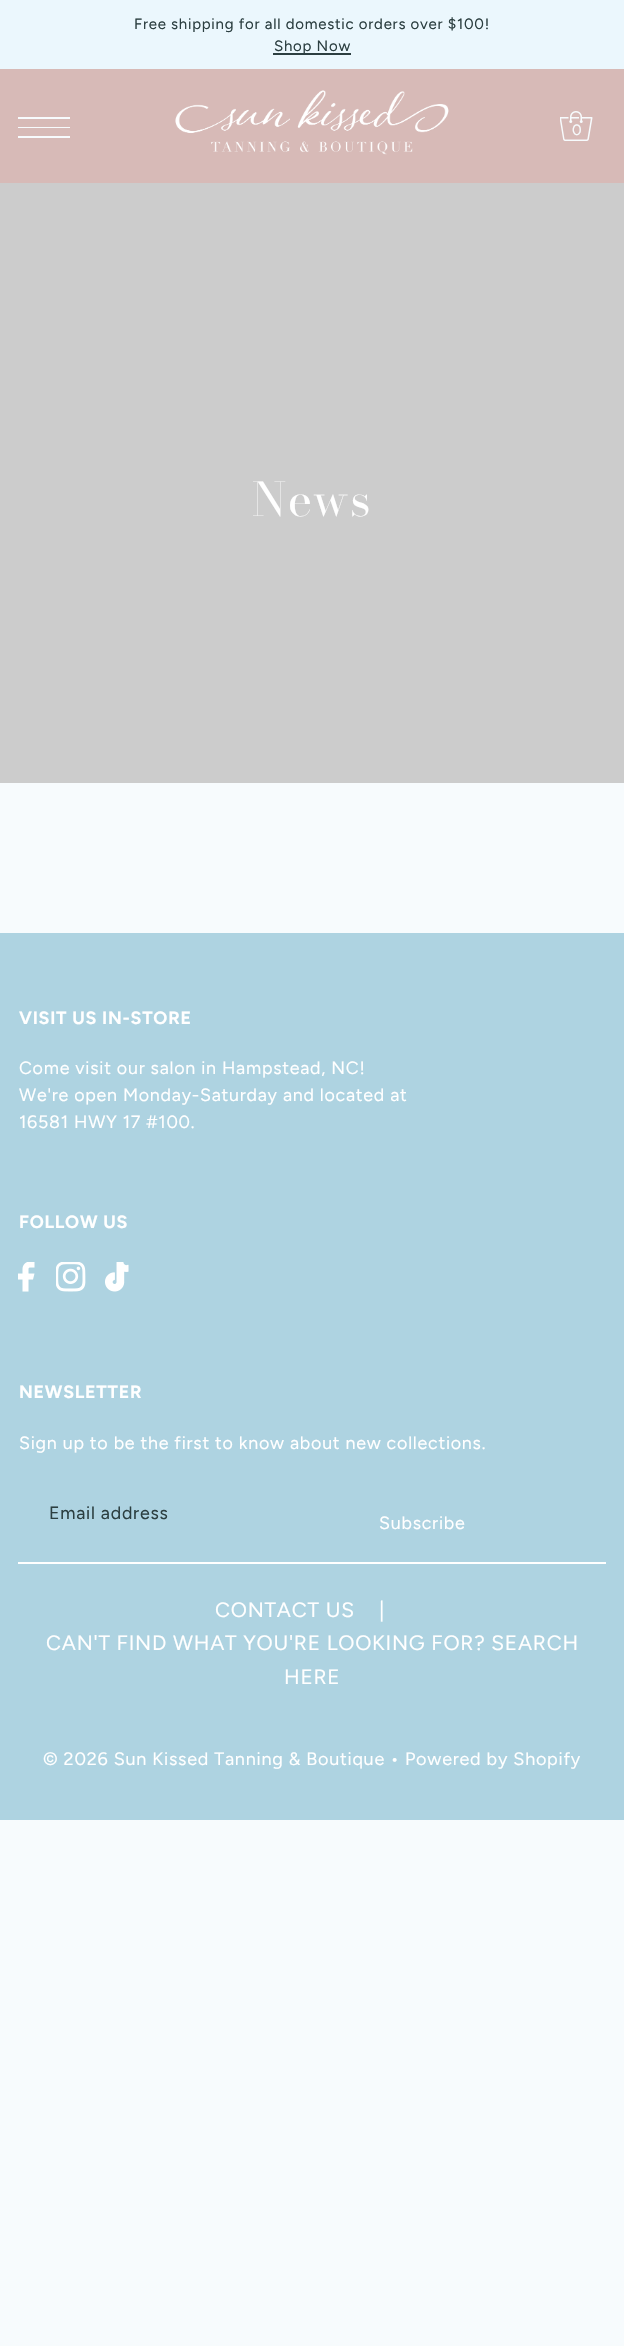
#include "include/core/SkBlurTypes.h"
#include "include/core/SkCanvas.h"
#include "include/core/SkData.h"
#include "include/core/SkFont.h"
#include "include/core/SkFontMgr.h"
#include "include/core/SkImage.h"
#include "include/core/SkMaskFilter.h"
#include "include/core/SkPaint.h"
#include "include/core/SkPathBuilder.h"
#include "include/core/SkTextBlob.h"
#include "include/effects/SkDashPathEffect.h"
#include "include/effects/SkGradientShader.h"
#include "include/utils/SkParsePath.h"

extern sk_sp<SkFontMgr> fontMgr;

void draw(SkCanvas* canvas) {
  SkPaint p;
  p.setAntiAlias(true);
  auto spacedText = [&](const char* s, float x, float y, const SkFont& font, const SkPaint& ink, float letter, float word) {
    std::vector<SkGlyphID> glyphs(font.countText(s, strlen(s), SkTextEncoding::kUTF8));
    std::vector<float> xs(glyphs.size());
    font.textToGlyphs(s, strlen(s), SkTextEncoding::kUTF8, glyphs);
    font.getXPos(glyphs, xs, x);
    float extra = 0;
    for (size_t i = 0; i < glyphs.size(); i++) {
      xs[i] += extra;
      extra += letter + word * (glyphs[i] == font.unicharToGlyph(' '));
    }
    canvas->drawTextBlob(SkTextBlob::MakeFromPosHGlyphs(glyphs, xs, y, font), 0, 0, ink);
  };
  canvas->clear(SkColorSetRGB(247, 251, 253));
  p.setColor(SkColorSetRGB(235, 247, 253));
  canvas->drawRect(SkRect::MakeLTRB(0, 0, 624, 69), p);
  p.setColor(SkColorSetRGB(44, 63, 65));
  canvas->drawRect(SkRect::MakeLTRB(273, 53, 351, 55), p);
  p.setColor(SkColorSetRGB(215, 186, 183));
  canvas->drawRect(SkRect::MakeLTRB(0, 69, 624, 183), p);
  p.setColor(SkColorSetRGB(247, 251, 253));
  canvas->drawRect(SkRect::MakeLTRB(18, 117, 70, 119), p);
  canvas->drawRect(SkRect::MakeLTRB(18, 127, 70, 128), p);
  canvas->drawRect(SkRect::MakeLTRB(18, 136, 70, 138), p);
  canvas->drawImageRect(SkImages::DeferredFromEncodedData(SkData::MakeFromFileName("images/1.png")), SkRect::MakeLTRB(175, 90, 449, 155), SkSamplingOptions());
  canvas->drawImageRect(SkImages::DeferredFromEncodedData(SkData::MakeFromFileName("images/2.png")), SkRect::MakeLTRB(560, 111, 593, 141), SkSamplingOptions());
  p.setColor(SkColorSetRGB(204, 204, 204));
  canvas->drawRect(SkRect::MakeLTRB(0, 183, 624, 783), p);
  p.setColor(SkColorSetRGB(174, 211, 225));
  canvas->drawRect(SkRect::MakeLTRB(0, 933, 624, 1820), p);
  canvas->drawImageRect(SkImages::DeferredFromEncodedData(SkData::MakeFromFileName("images/3.png")), SkRect::MakeLTRB(18, 1262, 35, 1292), SkSamplingOptions());
  canvas->drawImageRect(SkImages::DeferredFromEncodedData(SkData::MakeFromFileName("images/4.png")), SkRect::MakeLTRB(56, 1262, 86, 1292), SkSamplingOptions());
  canvas->drawImageRect(SkImages::DeferredFromEncodedData(SkData::MakeFromFileName("images/5.png")), SkRect::MakeLTRB(105, 1262, 129, 1292), SkSamplingOptions());
  p.setColor(SK_ColorWHITE);
  canvas->drawRect(SkRect::MakeLTRB(18, 1562, 606, 1564), p);
  SkFont font1(fontMgr->matchFamilyStyle("Figtree", SkFontStyle::Normal()), 15);
  font1.setSubpixel(true);
  p.setColor(SkColorSetRGB(44, 63, 65));
  spacedText("Free shipping for all domestic orders over $100!", 134, 29, font1, p, 0.75f, 0);
  spacedText("Shop Now", 274, 51, font1, p, 0.75f, 0);
  p.setColor(SkColorSetRGB(247, 251, 253));
  canvas->drawString("0", 572, 135, font1, p);
  SkFont font2(fontMgr->matchFamilyStyle("Bodoni Moda", SkFontStyle::Normal()), 46);
  font2.setSubpixel(true);
  p.setColor(SK_ColorWHITE);
  spacedText("News", 252, 516, font2, p, 1.5f, 0);
  SkFont font3(fontMgr->matchFamilyStyle("Figtree", SkFontStyle::Bold()), 17.85f);
  font3.setSubpixel(true);
  spacedText("VISIT US IN-STORE", 19, 1024, font3, p, 0.75f, 0);
  SkFont font4(fontMgr->matchFamilyStyle("Figtree", SkFontStyle::Normal()), 17.85f);
  font4.setSubpixel(true);
  spacedText("Come visit our salon in Hampstead, NC!", 19, 1074, font4, p, 0.75f, 0);
  spacedText("We're open Monday-Saturday and located at", 19, 1101, font4, p, 0.75f, 0);
  spacedText("16581 HWY 17 #100.", 19, 1128, font4, p, 0.75f, 0);
  spacedText("FOLLOW US", 19, 1228, font3, p, 0.75f, 0);
  spacedText("NEWSLETTER", 19, 1398, font3, p, 0.75f, 0);
  spacedText("Sign up to be the first to know about new collections.", 19, 1449, font4, p, 0.75f, 0);
  p.setColor(SkColorSetRGB(44, 63, 65));
  spacedText("Email address", 49, 1519, font4, p, 0.75f, 0);
  p.setColor(SK_ColorWHITE);
  spacedText("Subscribe", 379, 1529, font4, p, 0.75f, 0);
  SkFont font5(fontMgr->matchFamilyStyle("Figtree", SkFontStyle::Normal()), 20.85f);
  font5.setSubpixel(true);
  spacedText("CONTACT US", 215, 1617, font5, p, 0.75f, 0);
  spacedText("|", 379, 1617, font5, p, 0.75f, 0);
  spacedText("CAN'T FIND WHAT YOU'RE LOOKING FOR? SEARCH", 46, 1650, font5, p, 0.75f, 0);
  spacedText("HERE", 284, 1684, font5, p, 0.75f, 0);
  SkFont font6(fontMgr->matchFamilyStyle("Figtree", SkFontStyle::Normal()), 18);
  font6.setSubpixel(true);
  spacedText("© 2026 Sun Kissed Tanning & Boutique • Powered by Shopify", 43, 1765, font6, p, 0.75f, 0);
}
